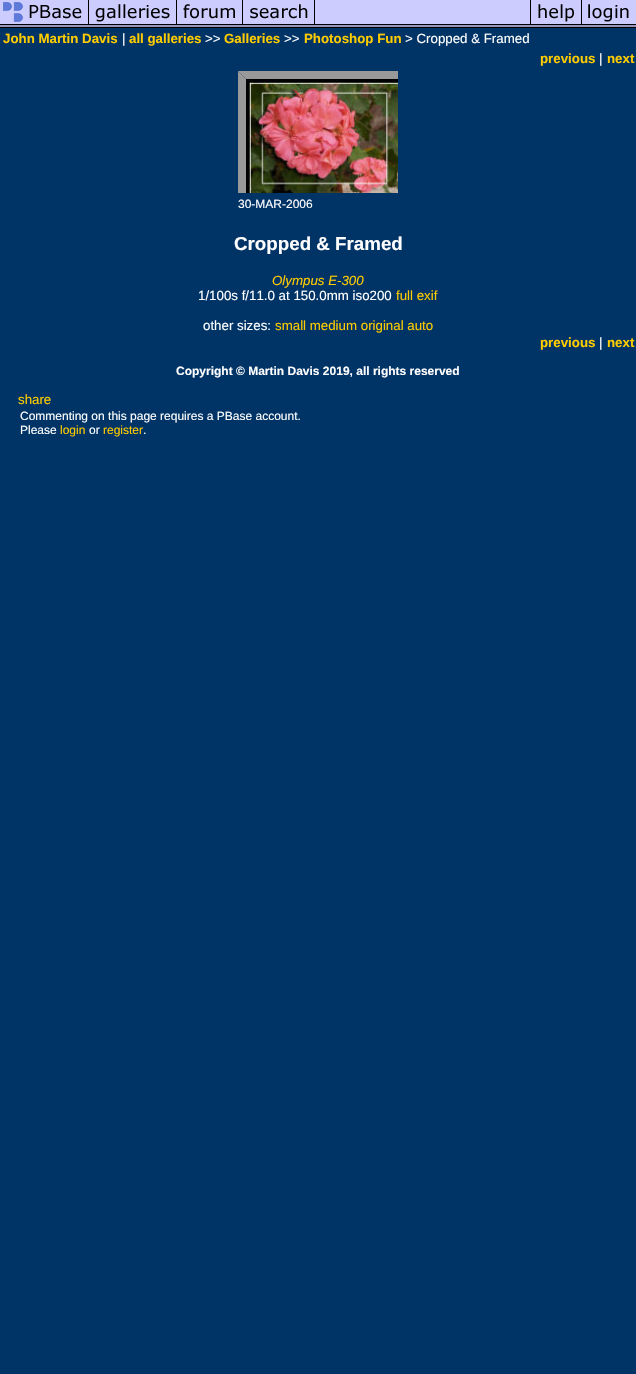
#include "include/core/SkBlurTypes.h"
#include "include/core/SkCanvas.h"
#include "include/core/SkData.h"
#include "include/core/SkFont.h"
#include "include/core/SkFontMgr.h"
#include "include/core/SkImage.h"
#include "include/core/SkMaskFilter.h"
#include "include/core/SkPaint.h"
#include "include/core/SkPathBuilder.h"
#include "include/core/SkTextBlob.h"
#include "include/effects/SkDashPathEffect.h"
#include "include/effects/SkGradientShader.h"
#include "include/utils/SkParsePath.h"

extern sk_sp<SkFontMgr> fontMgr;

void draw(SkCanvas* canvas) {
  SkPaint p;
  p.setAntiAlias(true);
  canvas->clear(SkColorSetRGB(0, 51, 102));
  canvas->drawImageRect(SkImages::DeferredFromEncodedData(SkData::MakeFromFileName("images/1.png")), SkRect::MakeLTRB(0, 0, 89, 28), SkSamplingOptions());
  canvas->drawImageRect(SkImages::DeferredFromEncodedData(SkData::MakeFromFileName("images/2.png")), SkRect::MakeLTRB(89, 0, 177, 28), SkSamplingOptions());
  canvas->drawImageRect(SkImages::DeferredFromEncodedData(SkData::MakeFromFileName("images/3.png")), SkRect::MakeLTRB(177, 0, 243, 28), SkSamplingOptions());
  canvas->drawImageRect(SkImages::DeferredFromEncodedData(SkData::MakeFromFileName("images/4.png")), SkRect::MakeLTRB(243, 0, 315, 28), SkSamplingOptions());
  canvas->drawImageRect(SkImages::DeferredFromEncodedData(SkData::MakeFromFileName("images/5.png")), SkRect::MakeLTRB(315, 0, 530, 28), SkSamplingOptions());
  canvas->drawImageRect(SkImages::DeferredFromEncodedData(SkData::MakeFromFileName("images/6.png")), SkRect::MakeLTRB(530, 0, 582, 28), SkSamplingOptions());
  canvas->drawImageRect(SkImages::DeferredFromEncodedData(SkData::MakeFromFileName("images/7.png")), SkRect::MakeLTRB(582, 0, 636, 28), SkSamplingOptions());
  canvas->save();
  canvas->clipRect(SkRect::MakeLTRB(238, 71, 398, 193));
  p.setColor(SkColorSetRGB(153, 153, 153));
  canvas->drawPath(SkPathBuilder().moveTo(238, 71).lineTo(411, 71).lineTo(403, 79).lineTo(246, 79).close().detach(), p);
  canvas->drawPath(SkPathBuilder().moveTo(238, 207).lineTo(238, 71).lineTo(246, 79).lineTo(246, 199).close().detach(), p);
  canvas->restore();
  canvas->drawImageRect(SkImages::DeferredFromEncodedData(SkData::MakeFromFileName("images/8.png")), SkRect::MakeLTRB(246, 79, 398, 193), SkSamplingOptions());
  SkFont font1(fontMgr->matchFamilyStyle("Liberation Sans", SkFontStyle::Bold()), 13.3f);
  font1.setSubpixel(true);
  p.setColor(SkColorSetRGB(255, 204, 0));
  canvas->drawString("John Martin Davis", 3, 43, font1, p);
  SkFont font2(fontMgr->matchFamilyStyle("Liberation Sans", SkFontStyle::Normal()), 13.3f);
  font2.setSubpixel(true);
  p.setColor(SK_ColorWHITE);
  canvas->drawString("|", 122, 43, font2, p);
  p.setColor(SkColorSetRGB(255, 204, 0));
  canvas->drawString("all galleries", 129, 43, font1, p);
  p.setColor(SK_ColorWHITE);
  canvas->drawString(">>", 205, 43, font2, p);
  p.setColor(SkColorSetRGB(255, 204, 0));
  canvas->drawString("Galleries", 224, 43, font1, p);
  p.setColor(SK_ColorWHITE);
  canvas->drawString(">>", 284, 43, font2, p);
  p.setColor(SkColorSetRGB(255, 204, 0));
  canvas->drawString("Photoshop Fun", 304, 43, font1, p);
  p.setColor(SK_ColorWHITE);
  canvas->drawString("> Cropped & Framed", 405, 43, font2, p);
  p.setColor(SkColorSetRGB(255, 204, 0));
  canvas->drawString("previous", 540, 63, font1, p);
  p.setColor(SK_ColorWHITE);
  canvas->drawString("|", 599, 63, font2, p);
  p.setColor(SkColorSetRGB(255, 204, 0));
  canvas->drawString("next", 607, 63, font1, p);
  SkFont font3(fontMgr->matchFamilyStyle("Liberation Sans", SkFontStyle::Normal()), 12);
  font3.setSubpixel(true);
  p.setColor(SK_ColorWHITE);
  canvas->drawString("30-MAR-2006", 238, 208, font3, p);
  SkFont font4(fontMgr->matchFamilyStyle("Liberation Sans", SkFontStyle::Bold()), 18.75f);
  font4.setSubpixel(true);
  canvas->drawString("Cropped & Framed", 234, 250, font4, p);
  SkFont font5(fontMgr->matchFamilyStyle("Liberation Sans", SkFontStyle::Italic()), 13.3f);
  font5.setSubpixel(true);
  p.setColor(SkColorSetRGB(255, 204, 0));
  canvas->drawString("Olympus E-300", 272, 285, font5, p);
  p.setColor(SK_ColorWHITE);
  canvas->drawString("1/100s f/11.0 at 150.0mm iso200", 198, 300, font2, p);
  p.setColor(SkColorSetRGB(255, 204, 0));
  canvas->drawString("full exif", 396, 300, font2, p);
  p.setColor(SK_ColorWHITE);
  canvas->drawString("other sizes:", 203, 330, font2, p);
  p.setColor(SkColorSetRGB(255, 204, 0));
  canvas->drawString("small medium original auto", 275, 330, font2, p);
  canvas->drawString("previous", 540, 347, font1, p);
  p.setColor(SK_ColorWHITE);
  canvas->drawString("|", 599, 347, font2, p);
  p.setColor(SkColorSetRGB(255, 204, 0));
  canvas->drawString("next", 607, 347, font1, p);
  SkFont font6(fontMgr->matchFamilyStyle("Liberation Sans", SkFontStyle::Bold()), 12);
  font6.setSubpixel(true);
  p.setColor(SK_ColorWHITE);
  canvas->drawString("Copyright © Martin Davis 2019, all rights reserved", 176, 375, font6, p);
  p.setColor(SkColorSetRGB(255, 204, 0));
  canvas->drawString("share", 18, 404, font2, p);
  p.setColor(SK_ColorWHITE);
  canvas->drawString("Commenting on this page requires a PBase account.", 20, 420, font3, p);
  canvas->drawString("Please", 20, 434, font3, p);
  p.setColor(SkColorSetRGB(255, 204, 0));
  canvas->drawString("login", 60, 434, font3, p);
  p.setColor(SK_ColorWHITE);
  canvas->drawString("or", 89, 434, font3, p);
  p.setColor(SkColorSetRGB(255, 204, 0));
  canvas->drawString("register", 103, 434, font3, p);
  p.setColor(SK_ColorWHITE);
  canvas->drawString(".", 143, 434, font3, p);
}
